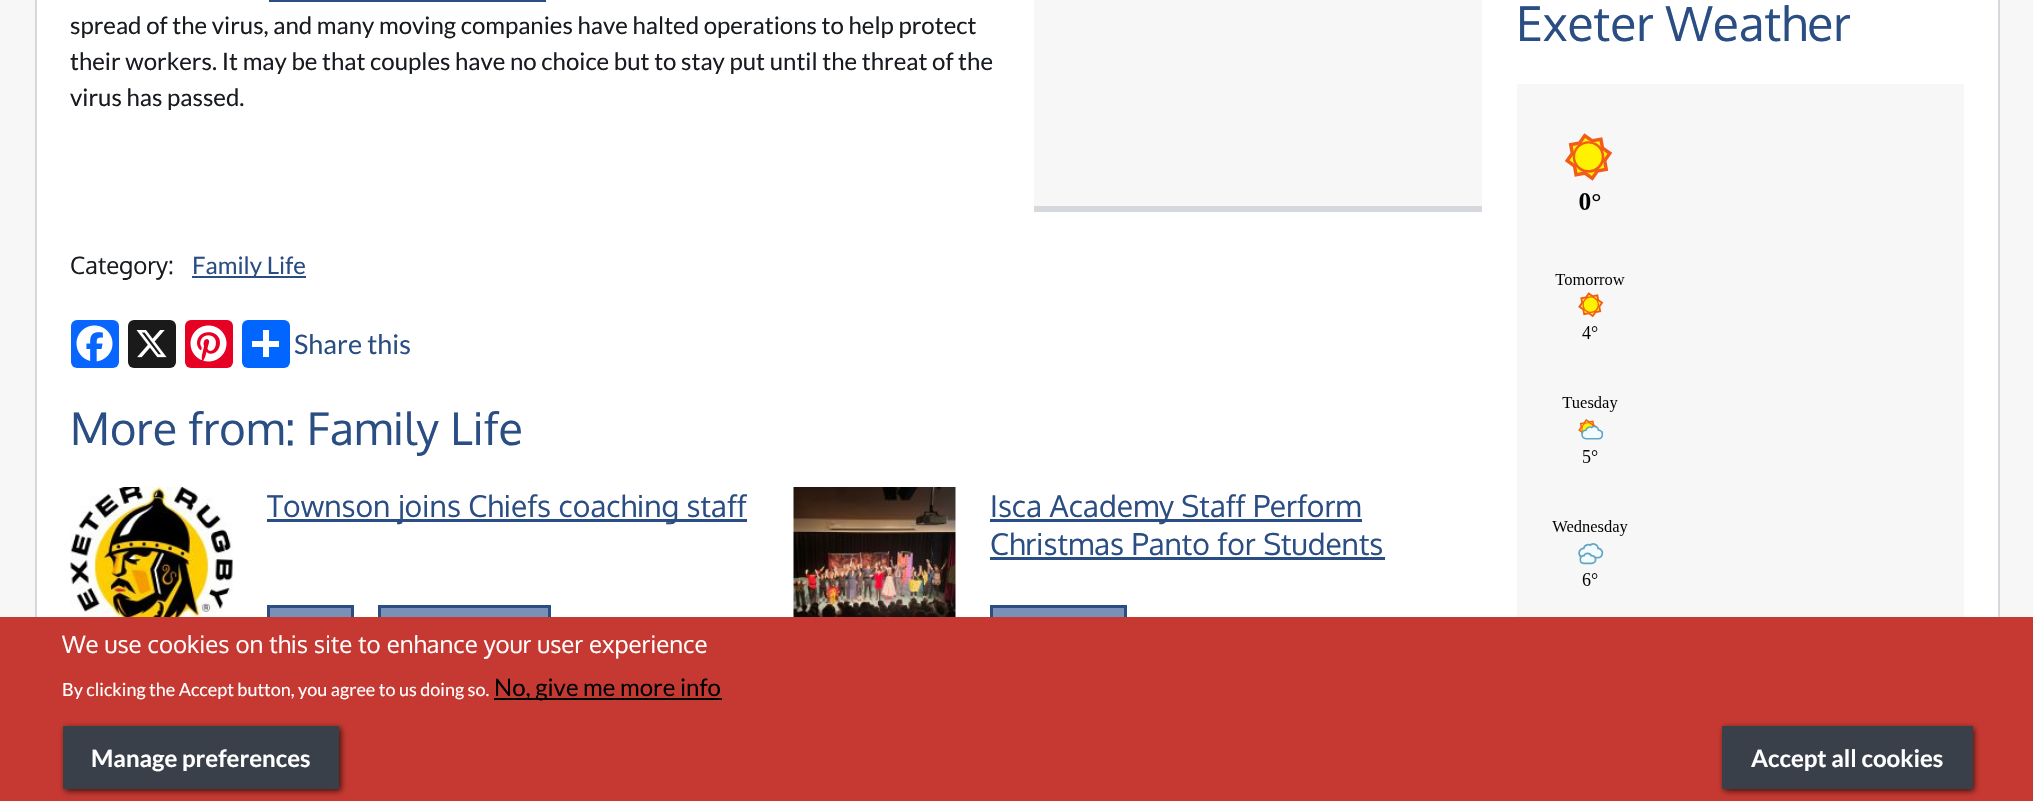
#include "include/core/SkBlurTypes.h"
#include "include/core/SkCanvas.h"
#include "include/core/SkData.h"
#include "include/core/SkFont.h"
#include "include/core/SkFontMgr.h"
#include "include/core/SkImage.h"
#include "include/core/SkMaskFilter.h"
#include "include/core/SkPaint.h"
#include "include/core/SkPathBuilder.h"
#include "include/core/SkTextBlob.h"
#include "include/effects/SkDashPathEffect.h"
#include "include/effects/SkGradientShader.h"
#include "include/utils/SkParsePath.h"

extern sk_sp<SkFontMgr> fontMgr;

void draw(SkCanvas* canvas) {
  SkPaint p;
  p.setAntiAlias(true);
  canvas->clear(SkColorSetRGB(247, 247, 248));
  p.setColor(SK_ColorWHITE);
  canvas->drawRect(SkRect::MakeLTRB(37, 0, 1998, 617), p);
  p.setColor(SkColorSetRGB(213, 216, 220));
  canvas->drawRect(SkRect::MakeLTRB(1998, 0, 2000, 617), p);
  canvas->drawRect(SkRect::MakeLTRB(35, 0, 37, 617), p);
  p.setColor(SkColorSetRGB(42, 77, 131));
  canvas->drawRect(SkRect::MakeLTRB(269, 0, 546, 2), p);
  p.setColor(SkColorSetRGB(247, 247, 248));
  canvas->drawRect(SkRect::MakeLTRB(1034, 0, 1482, 206), p);
  p.setColor(SkColorSetRGB(213, 216, 220));
  canvas->drawRect(SkRect::MakeLTRB(1034, 206, 1482, 212), p);
  p.setColor(SkColorSetRGB(42, 77, 131));
  canvas->drawRect(SkRect::MakeLTRB(192, 276, 306, 278), p);
  p.setColor(SkColorSetRGB(8, 102, 255));
  canvas->drawRoundRect(SkRect::MakeLTRB(71, 320, 119, 368), 6, 6, p);
  canvas->drawImageRect(SkImages::DeferredFromEncodedData(SkData::MakeFromFileName("images/1.png")), SkRect::MakeLTRB(76, 325, 113, 362), SkSamplingOptions());
  p.setColor(SkColorSetRGB(26, 26, 26));
  canvas->drawRoundRect(SkRect::MakeLTRB(128, 320, 176, 368), 6, 6, p);
  canvas->drawImageRect(SkImages::DeferredFromEncodedData(SkData::MakeFromFileName("images/2.png")), SkRect::MakeLTRB(136, 330, 167, 358), SkSamplingOptions());
  p.setColor(SkColorSetRGB(230, 0, 35));
  canvas->drawRoundRect(SkRect::MakeLTRB(185, 320, 233, 368), 6, 6, p);
  canvas->drawImageRect(SkImages::DeferredFromEncodedData(SkData::MakeFromFileName("images/3.png")), SkRect::MakeLTRB(190, 325, 227, 362), SkSamplingOptions());
  p.setColor(SkColorSetRGB(1, 102, 255));
  canvas->drawRoundRect(SkRect::MakeLTRB(242, 320, 290, 368), 6, 6, p);
  p.setColor(SK_ColorWHITE);
  canvas->drawRect(SkRect::MakeLTRB(263, 330, 269, 357), p);
  canvas->drawRect(SkRect::MakeLTRB(252, 341, 279, 347), p);
  canvas->drawImageRect(SkImages::DeferredFromEncodedData(SkData::MakeFromFileName("images/4.png")), SkRect::MakeLTRB(70, 487, 233, 617), SkSamplingOptions());
  p.setColor(SkColorSetRGB(42, 77, 131));
  canvas->drawRect(SkRect::MakeLTRB(267, 519, 747, 522), p);
  p.setColor(SkColorSetRGB(121, 145, 184));
  canvas->drawRect(SkRect::MakeLTRB(270, 608, 351, 617), p);
  p.setStyle(SkPaint::kStroke_Style);
  p.setStrokeWidth(3);
  p.setColor(SkColorSetRGB(42, 77, 131));
  canvas->drawRect(SkRect::MakeLTRB(268.5f, 606.5f, 352.5f, 648.5f), p);
  p.setStyle(SkPaint::kFill_Style);
  p.setColor(SkColorSetRGB(121, 145, 184));
  canvas->drawRect(SkRect::MakeLTRB(381, 608, 548, 617), p);
  p.setStyle(SkPaint::kStroke_Style);
  p.setColor(SkColorSetRGB(42, 77, 131));
  canvas->drawRect(SkRect::MakeLTRB(379.5f, 606.5f, 549.5f, 648.5f), p);
  canvas->drawImageRect(SkImages::DeferredFromEncodedData(SkData::MakeFromFileName("images/5.png")), SkRect::MakeLTRB(793, 487, 956, 617), SkSamplingOptions());
  p.setStyle(SkPaint::kFill_Style);
  canvas->drawRect(SkRect::MakeLTRB(990, 519, 1362, 522), p);
  canvas->drawRect(SkRect::MakeLTRB(990, 557, 1385, 560), p);
  p.setColor(SkColorSetRGB(121, 145, 184));
  canvas->drawRect(SkRect::MakeLTRB(993, 608, 1124, 617), p);
  p.setStyle(SkPaint::kStroke_Style);
  p.setColor(SkColorSetRGB(42, 77, 131));
  canvas->drawRect(SkRect::MakeLTRB(991.5f, 606.5f, 1125.5f, 648.5f), p);
  p.setStyle(SkPaint::kFill_Style);
  p.setColor(SkColorSetRGB(247, 247, 248));
  canvas->drawRect(SkRect::MakeLTRB(1517, 84, 1964, 617), p);
  canvas->drawImageRect(SkImages::DeferredFromEncodedData(SkData::MakeFromFileName("images/6.png")), SkRect::MakeLTRB(1552, 133, 1628, 586), SkSamplingOptions());
  p.setColor(SkColorSetRGB(198, 57, 50));
  canvas->drawRect(SkRect::MakeLTRB(0, 617, 2033, 801), p);
  p.setColor(SK_ColorBLACK);
  canvas->drawRect(SkRect::MakeLTRB(494, 698, 722, 700), p);
  p.setColor(SkColorSetARGB(179, 0, 0, 0));
  p.setMaskFilter(SkMaskFilter::MakeBlur(kNormal_SkBlurStyle, 3));
  canvas->drawRect(SkRect::MakeLTRB(65, 728, 341, 791), p);
  p.setMaskFilter(nullptr);
  p.setColor(SkColorSetRGB(58, 64, 74));
  canvas->drawRect(SkRect::MakeLTRB(63, 726, 339, 789), p);
  p.setColor(SkColorSetARGB(179, 0, 0, 0));
  p.setMaskFilter(SkMaskFilter::MakeBlur(kNormal_SkBlurStyle, 3));
  canvas->drawRect(SkRect::MakeLTRB(1724, 728, 1974, 791), p);
  p.setMaskFilter(nullptr);
  p.setColor(SkColorSetRGB(58, 64, 74));
  canvas->drawRect(SkRect::MakeLTRB(1722, 726, 1973, 789), p);
  SkFont font1(fontMgr->matchFamilyStyle("Lato", SkFontStyle::Normal()), 24);
  font1.setSubpixel(true);
  p.setColor(SkColorSetRGB(24, 27, 32));
  canvas->drawString("spread of the virus, and many moving companies have halted operations to help protect", 70, 34, font1, p);
  canvas->drawString("their workers. It may be that couples have no choice but to stay put until the threat of the", 70, 70, font1, p);
  canvas->drawString("virus has passed.", 70, 106, font1, p);
  SkFont font2(fontMgr->matchFamilyStyle("Oxygen", SkFontStyle::Normal()), 24);
  font2.setSubpixel(true);
  canvas->drawString("Category:", 70, 274, font2, p);
  p.setColor(SkColorSetRGB(42, 77, 131));
  canvas->drawString("Family Life", 192, 274, font1, p);
  SkFont font3(fontMgr->matchFamilyStyle("Lato", SkFontStyle::Normal()), 27);
  font3.setSubpixel(true);
  canvas->drawString("Share this", 294, 354, font3, p);
  SkFont font4(fontMgr->matchFamilyStyle("Oxygen", SkFontStyle::Normal()), 45);
  font4.setSubpixel(true);
  canvas->drawString("More from: Family Life", 70, 445, font4, p);
  canvas->save();
  canvas->clipRect(SkRect::MakeLTRB(267, 488, 761, 563));
  SkFont font5(fontMgr->matchFamilyStyle("Oxygen", SkFontStyle::Normal()), 30);
  font5.setSubpixel(true);
  canvas->drawString("Townson joins Chiefs coaching staff", 267, 517, font5, p);
  canvas->restore();
  canvas->drawString("Isca Academy Staff Perform", 990, 517, font5, p);
  canvas->drawString("Christmas Panto for Students", 990, 555, font5, p);
  SkFont font6(fontMgr->matchFamilyStyle("Oxygen", SkFontStyle::Normal()), 48);
  font6.setSubpixel(true);
  canvas->drawString("Exeter Weather", 1516, 41, font6, p);
  p.setColor(SK_ColorWHITE);
  canvas->drawString("We use cookies on this site to enhance your user experience", 62, 653, font2, p);
  SkFont font7(fontMgr->matchFamilyStyle("Lato", SkFontStyle::Normal()), 18);
  font7.setSubpixel(true);
  canvas->drawString("By clicking the Accept button, you agree to us doing so.", 62, 696, font7, p);
  p.setColor(SK_ColorBLACK);
  canvas->drawString("No, give me more info", 494, 696, font1, p);
  SkFont font8(fontMgr->matchFamilyStyle("Lato", SkFontStyle::Bold()), 24);
  font8.setSubpixel(true);
  p.setColor(SK_ColorWHITE);
  canvas->drawString("Manage preferences", 91, 767, font8, p);
  canvas->drawString("Accept all cookies", 1751, 767, font8, p);
}
